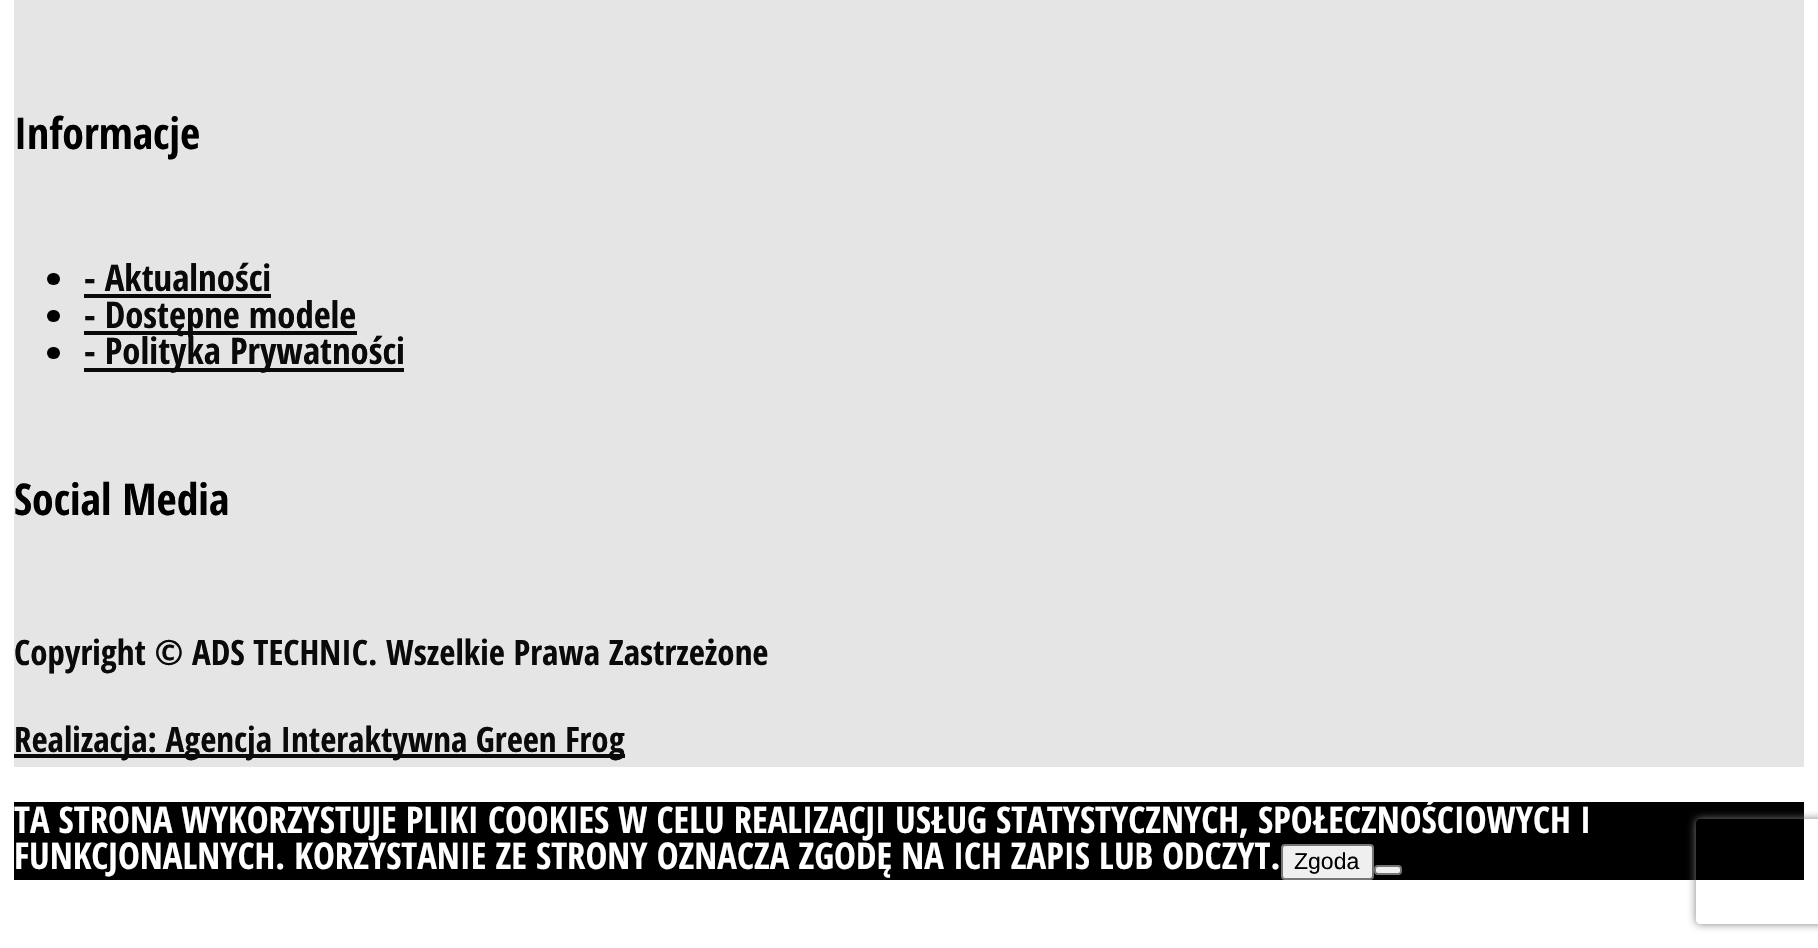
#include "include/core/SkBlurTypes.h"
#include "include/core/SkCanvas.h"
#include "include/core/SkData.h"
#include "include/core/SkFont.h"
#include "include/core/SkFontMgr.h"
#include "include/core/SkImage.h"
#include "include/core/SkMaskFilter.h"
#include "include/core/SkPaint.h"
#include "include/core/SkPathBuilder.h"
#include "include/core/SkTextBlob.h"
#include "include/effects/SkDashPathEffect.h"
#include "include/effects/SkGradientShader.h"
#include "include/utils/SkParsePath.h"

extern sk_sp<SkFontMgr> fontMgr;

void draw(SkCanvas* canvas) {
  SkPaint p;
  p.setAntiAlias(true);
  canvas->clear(SK_ColorWHITE);
  p.setColor(SkColorSetRGB(229, 229, 229));
  canvas->drawRect(SkRect::MakeLTRB(14, 0, 1804, 767), p);
  p.setColor(SK_ColorBLACK);
  canvas->drawRoundRect(SkRect::MakeLTRB(47, 273, 60, 285), 6, 6, p);
  p.setColor(SkColorSetRGB(10, 10, 10));
  canvas->drawRect(SkRect::MakeLTRB(84, 294, 271, 298), p);
  p.setColor(SK_ColorBLACK);
  canvas->drawRoundRect(SkRect::MakeLTRB(47, 310, 60, 322), 6, 6, p);
  p.setColor(SkColorSetRGB(10, 10, 10));
  canvas->drawRect(SkRect::MakeLTRB(84, 331, 357, 335), p);
  p.setColor(SK_ColorBLACK);
  canvas->drawRoundRect(SkRect::MakeLTRB(47, 347, 60, 359), 6, 6, p);
  p.setColor(SkColorSetRGB(10, 10, 10));
  canvas->drawRect(SkRect::MakeLTRB(84, 368, 404, 372), p);
  canvas->drawRect(SkRect::MakeLTRB(14, 754, 625, 758), p);
  p.setColor(SK_ColorBLACK);
  canvas->drawRect(SkRect::MakeLTRB(14, 802, 1804, 880), p);
  p.setColor(SkColorSetRGB(239, 239, 239));
  canvas->drawRoundRect(SkRect::MakeLTRB(1282, 845, 1373, 879), 3, 3, p);
  p.setStyle(SkPaint::kStroke_Style);
  p.setStrokeWidth(2);
  p.setColor(SkColorSetRGB(118, 118, 118));
  canvas->drawRoundRect(SkRect::MakeLTRB(1282, 845, 1373, 879), 3, 3, p);
  p.setStyle(SkPaint::kFill_Style);
  p.setColor(SkColorSetRGB(239, 239, 239));
  canvas->drawRoundRect(SkRect::MakeLTRB(1375, 866, 1401, 874), 3, 3, p);
  p.setStyle(SkPaint::kStroke_Style);
  p.setColor(SkColorSetRGB(118, 118, 118));
  canvas->drawRoundRect(SkRect::MakeLTRB(1375, 866, 1401, 874), 3, 3, p);
  canvas->save();
  canvas->clipPath(SkPathBuilder(SkPathFillType::kEvenOdd).moveTo(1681, 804).lineTo(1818, 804).lineTo(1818, 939).lineTo(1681, 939).close().moveTo(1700, 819).lineTo(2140, 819).cubicTo(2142, 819, 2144, 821, 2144, 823).lineTo(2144, 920).cubicTo(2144, 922, 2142, 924, 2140, 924).lineTo(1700, 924).cubicTo(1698, 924, 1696, 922, 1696, 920).lineTo(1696, 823).cubicTo(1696, 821, 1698, 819, 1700, 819).close().detach(), true);
  p.setStyle(SkPaint::kFill_Style);
  p.setColor(SkColorSetRGB(128, 128, 128));
  p.setMaskFilter(SkMaskFilter::MakeBlur(kNormal_SkBlurStyle, 4.5f));
  canvas->drawRoundRect(SkRect::MakeLTRB(1696, 819, 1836, 924), 4, 4, p);
  p.setMaskFilter(nullptr);
  canvas->restore();
  SkFont font1(fontMgr->matchFamilyStyle("Open Sans Condensed", SkFontStyle::Bold()), 43.75f);
  font1.setSubpixel(true);
  p.setColor(SK_ColorBLACK);
  canvas->drawString("Informacje", 14, 149, font1, p);
  SkFont font2(fontMgr->matchFamilyStyle("Open Sans Condensed", SkFontStyle::Bold()), 36.75f);
  font2.setSubpixel(true);
  p.setColor(SkColorSetRGB(10, 10, 10));
  canvas->drawString("- Aktualności", 84, 291, font2, p);
  canvas->drawString("- Dostępne modele", 84, 328, font2, p);
  canvas->drawString("- Polityka Prywatności", 84, 364, font2, p);
  p.setColor(SK_ColorBLACK);
  canvas->drawString("Social Media", 14, 515, font1, p);
  SkFont font3(fontMgr->matchFamilyStyle("Open Sans Condensed", SkFontStyle::Bold()), 35);
  font3.setSubpixel(true);
  p.setColor(SkColorSetRGB(10, 10, 10));
  canvas->drawString("Copyright © ADS TECHNIC. Wszelkie Prawa Zastrzeżone", 14, 665, font3, p);
  canvas->drawString("Realizacja: Agencja Interaktywna Green Frog", 14, 752, font3, p);
  p.setColor(SK_ColorWHITE);
  canvas->drawString("TA STRONA WYKORZYSTUJE PLIKI COOKIES W CELU REALIZACJI USŁUG STATYSTYCZNYCH, SPOŁECZNOŚCIOWYCH I", 14, 833, font2, p);
  canvas->drawString("FUNKCJONALNYCH. KORZYSTANIE ZE STRONY OZNACZA ZGODĘ NA ICH ZAPIS LUB ODCZYT.", 14, 869, font2, p);
  SkFont font4(fontMgr->matchFamilyStyle("Liberation Sans", SkFontStyle::Normal()), 23);
  font4.setSubpixel(true);
  p.setColor(SK_ColorBLACK);
  canvas->drawString("Zgoda", 1294, 869, font4, p);
}
